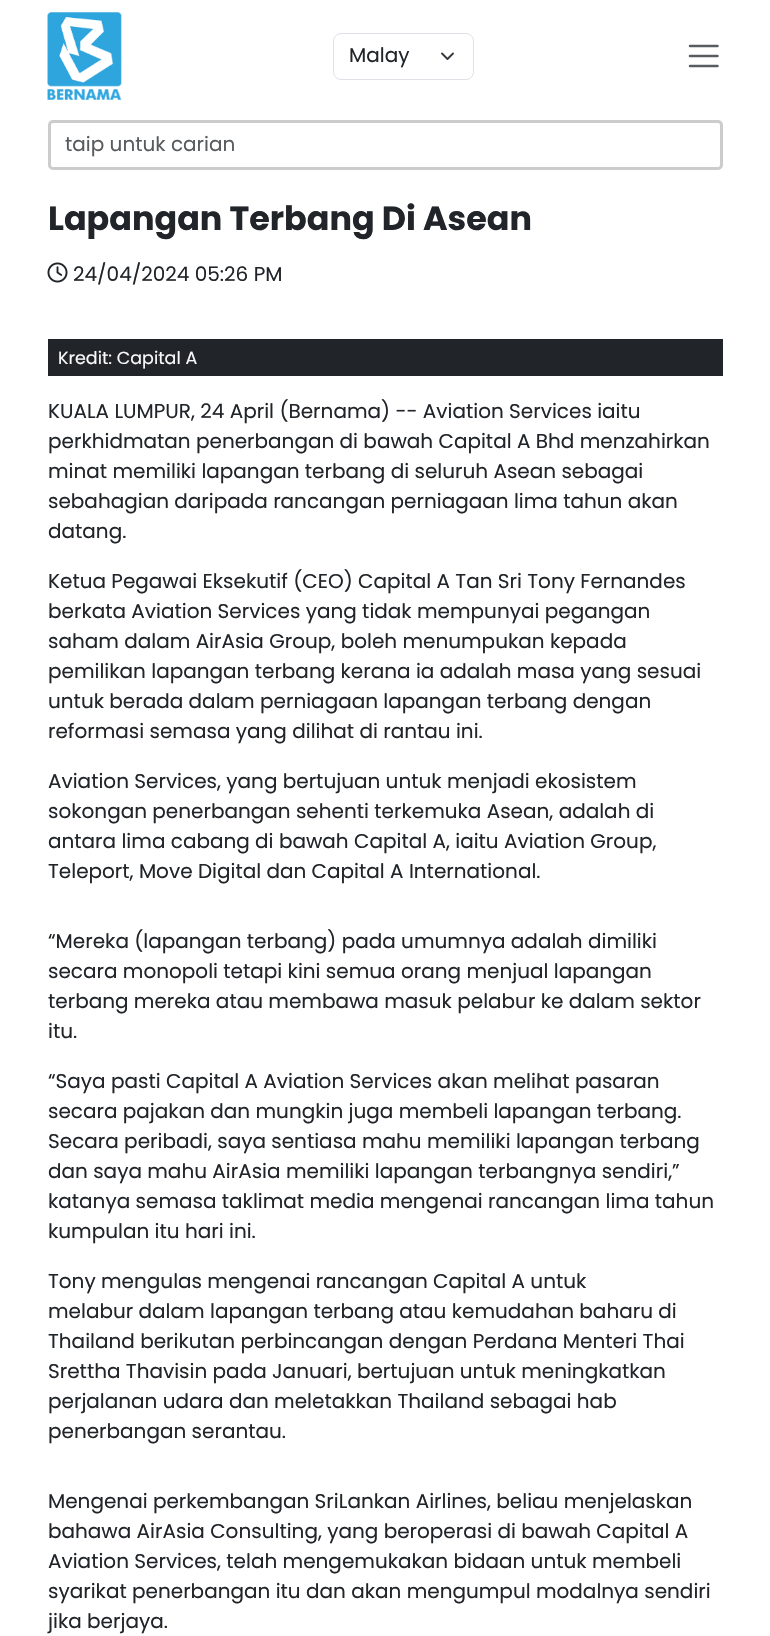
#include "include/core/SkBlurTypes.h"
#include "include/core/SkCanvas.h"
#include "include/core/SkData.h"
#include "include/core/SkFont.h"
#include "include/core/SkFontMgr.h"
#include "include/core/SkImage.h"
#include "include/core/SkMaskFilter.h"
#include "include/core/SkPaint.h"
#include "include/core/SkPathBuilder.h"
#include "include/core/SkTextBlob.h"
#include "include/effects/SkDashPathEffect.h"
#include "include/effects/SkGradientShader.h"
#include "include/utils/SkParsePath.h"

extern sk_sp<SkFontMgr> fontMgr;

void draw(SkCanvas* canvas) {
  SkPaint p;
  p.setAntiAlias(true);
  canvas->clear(SK_ColorWHITE);
  canvas->drawImageRect(SkImages::DeferredFromEncodedData(SkData::MakeFromFileName("images/1.png")), SkRect::MakeLTRB(47, 12, 122, 100), SkSamplingOptions());
  p.setStyle(SkPaint::kStroke_Style);
  p.setStrokeWidth(1.9f);
  p.setStrokeCap(SkPaint::kRound_Cap);
  p.setStrokeJoin(SkPaint::kRound_Join);
  p.setColor(SkColorSetRGB(52, 58, 64));
  canvas->drawPath(SkPathBuilder().moveTo(442, 53.5f).lineTo(447.5f, 59).lineTo(453, 53.5f).detach(), p);
  p.setStrokeWidth(1);
  p.setStrokeCap(SkPaint::kButt_Cap);
  p.setStrokeJoin(SkPaint::kMiter_Join);
  p.setColor(SkColorSetRGB(222, 226, 230));
  canvas->drawRoundRect(SkRect::MakeLTRB(333.5f, 33.5f, 473.5f, 79.5f), 7.5f, 7.5f, p);
  p.setStrokeWidth(2.5f);
  p.setStrokeCap(SkPaint::kRound_Cap);
  p.setColor(SkColorSetRGB(89, 92, 95));
  canvas->drawPath(SkPathBuilder().moveTo(690, 46).lineTo(717.5f, 46).moveTo(690, 56).lineTo(717.5f, 56).moveTo(690, 66).lineTo(717.5f, 66).detach(), p);
  p.setStrokeWidth(3);
  p.setStrokeCap(SkPaint::kButt_Cap);
  p.setColor(SkColorSetRGB(204, 204, 204));
  canvas->drawRoundRect(SkRect::MakeLTRB(49.5f, 121.5f, 721.5f, 168.5f), 3.5f, 3.5f, p);
  canvas->drawImageRect(SkImages::DeferredFromEncodedData(SkData::MakeFromFileName("images/2.png")), SkRect::MakeLTRB(47, 262, 68, 283), SkSamplingOptions());
  p.setStyle(SkPaint::kFill_Style);
  p.setColor(SkColorSetRGB(33, 37, 41));
  canvas->drawRect(SkRect::MakeLTRB(48, 339, 723, 376), p);
  SkFont font1(fontMgr->matchFamilyStyle("Poppins", SkFontStyle::Normal()), 20);
  font1.setSubpixel(true);
  canvas->drawString("Malay", 349, 62, font1, p);
  p.setColor(SkColorSetRGB(89, 92, 95));
  canvas->drawString("taip untuk carian", 65, 151, font1, p);
  SkFont font2(fontMgr->matchFamilyStyle("Poppins", SkFontStyle::Bold()), 33.4f);
  font2.setSubpixel(true);
  p.setColor(SkColorSetRGB(33, 37, 41));
  canvas->drawString("Lapangan Terbang Di Asean", 48, 230, font2, p);
  canvas->drawString("24/04/2024 05:26 PM", 73, 281, font1, p);
  SkFont font3(fontMgr->matchFamilyStyle("Poppins", SkFontStyle::Normal()), 17.5f);
  font3.setSubpixel(true);
  p.setColor(SkColorSetRGB(248, 249, 250));
  canvas->drawString("Kredit: Capital A", 58, 364, font3, p);
  p.setColor(SkColorSetRGB(33, 37, 41));
  canvas->drawString("KUALA LUMPUR, 24 April (Bernama) -- Aviation Services iaitu", 48, 418, font1, p);
  canvas->drawString("perkhidmatan penerbangan di bawah Capital A Bhd menzahirkan", 48, 448, font1, p);
  canvas->drawString("minat memiliki lapangan terbang di seluruh Asean sebagai", 48, 478, font1, p);
  canvas->drawString("sebahagian daripada rancangan perniagaan lima tahun akan", 48, 508, font1, p);
  canvas->drawString("datang.", 48, 538, font1, p);
  canvas->drawString("Ketua Pegawai Eksekutif (CEO) Capital A Tan Sri Tony Fernandes", 48, 588, font1, p);
  canvas->drawString("berkata Aviation Services yang tidak mempunyai pegangan", 48, 618, font1, p);
  canvas->drawString("saham dalam AirAsia Group, boleh menumpukan kepada", 48, 648, font1, p);
  canvas->drawString("pemilikan lapangan terbang kerana ia adalah masa yang sesuai", 48, 678, font1, p);
  canvas->drawString("untuk berada dalam perniagaan lapangan terbang dengan", 48, 708, font1, p);
  canvas->drawString("reformasi semasa yang dilihat di rantau ini.", 48, 738, font1, p);
  canvas->drawString("Aviation Services, yang bertujuan untuk menjadi ekosistem", 48, 788, font1, p);
  canvas->drawString("sokongan penerbangan sehenti terkemuka Asean, adalah di", 48, 818, font1, p);
  canvas->drawString("antara lima cabang di bawah Capital A, iaitu Aviation Group,", 48, 848, font1, p);
  canvas->drawString("Teleport, Move Digital dan Capital A International.", 48, 878, font1, p);
  canvas->drawString("“Mereka (lapangan terbang) pada umumnya adalah dimiliki", 48, 948, font1, p);
  canvas->drawString("secara monopoli tetapi kini semua orang menjual lapangan", 48, 978, font1, p);
  canvas->drawString("terbang mereka atau membawa masuk pelabur ke dalam sektor", 48, 1008, font1, p);
  canvas->drawString("itu.", 48, 1038, font1, p);
  canvas->drawString("“Saya pasti Capital A Aviation Services akan melihat pasaran", 48, 1088, font1, p);
  canvas->drawString("secara pajakan dan mungkin juga membeli lapangan terbang.", 48, 1118, font1, p);
  canvas->drawString("Secara peribadi, saya sentiasa mahu memiliki lapangan terbang", 48, 1148, font1, p);
  canvas->drawString("dan saya mahu AirAsia memiliki lapangan terbangnya sendiri,”", 48, 1178, font1, p);
  canvas->drawString("katanya semasa taklimat media mengenai rancangan lima tahun", 48, 1208, font1, p);
  canvas->drawString("kumpulan itu hari ini.", 48, 1238, font1, p);
  canvas->drawString("Tony mengulas mengenai rancangan Capital A untuk", 48, 1288, font1, p);
  canvas->drawString("melabur dalam lapangan terbang atau kemudahan baharu di", 48, 1318, font1, p);
  canvas->drawString("Thailand berikutan perbincangan dengan Perdana Menteri Thai", 48, 1348, font1, p);
  canvas->drawString("Srettha Thavisin pada Januari, bertujuan untuk meningkatkan", 48, 1378, font1, p);
  canvas->drawString("perjalanan udara dan meletakkan Thailand sebagai hab", 48, 1408, font1, p);
  canvas->drawString("penerbangan serantau.", 48, 1438, font1, p);
  canvas->drawString("Mengenai perkembangan SriLankan Airlines, beliau menjelaskan", 48, 1508, font1, p);
  canvas->drawString("bahawa AirAsia Consulting, yang beroperasi di bawah Capital A", 48, 1538, font1, p);
  canvas->drawString("Aviation Services, telah mengemukakan bidaan untuk membeli", 48, 1568, font1, p);
  canvas->drawString("syarikat penerbangan itu dan akan mengumpul modalnya sendiri", 48, 1598, font1, p);
  canvas->drawString("jika berjaya.", 48, 1628, font1, p);
}
